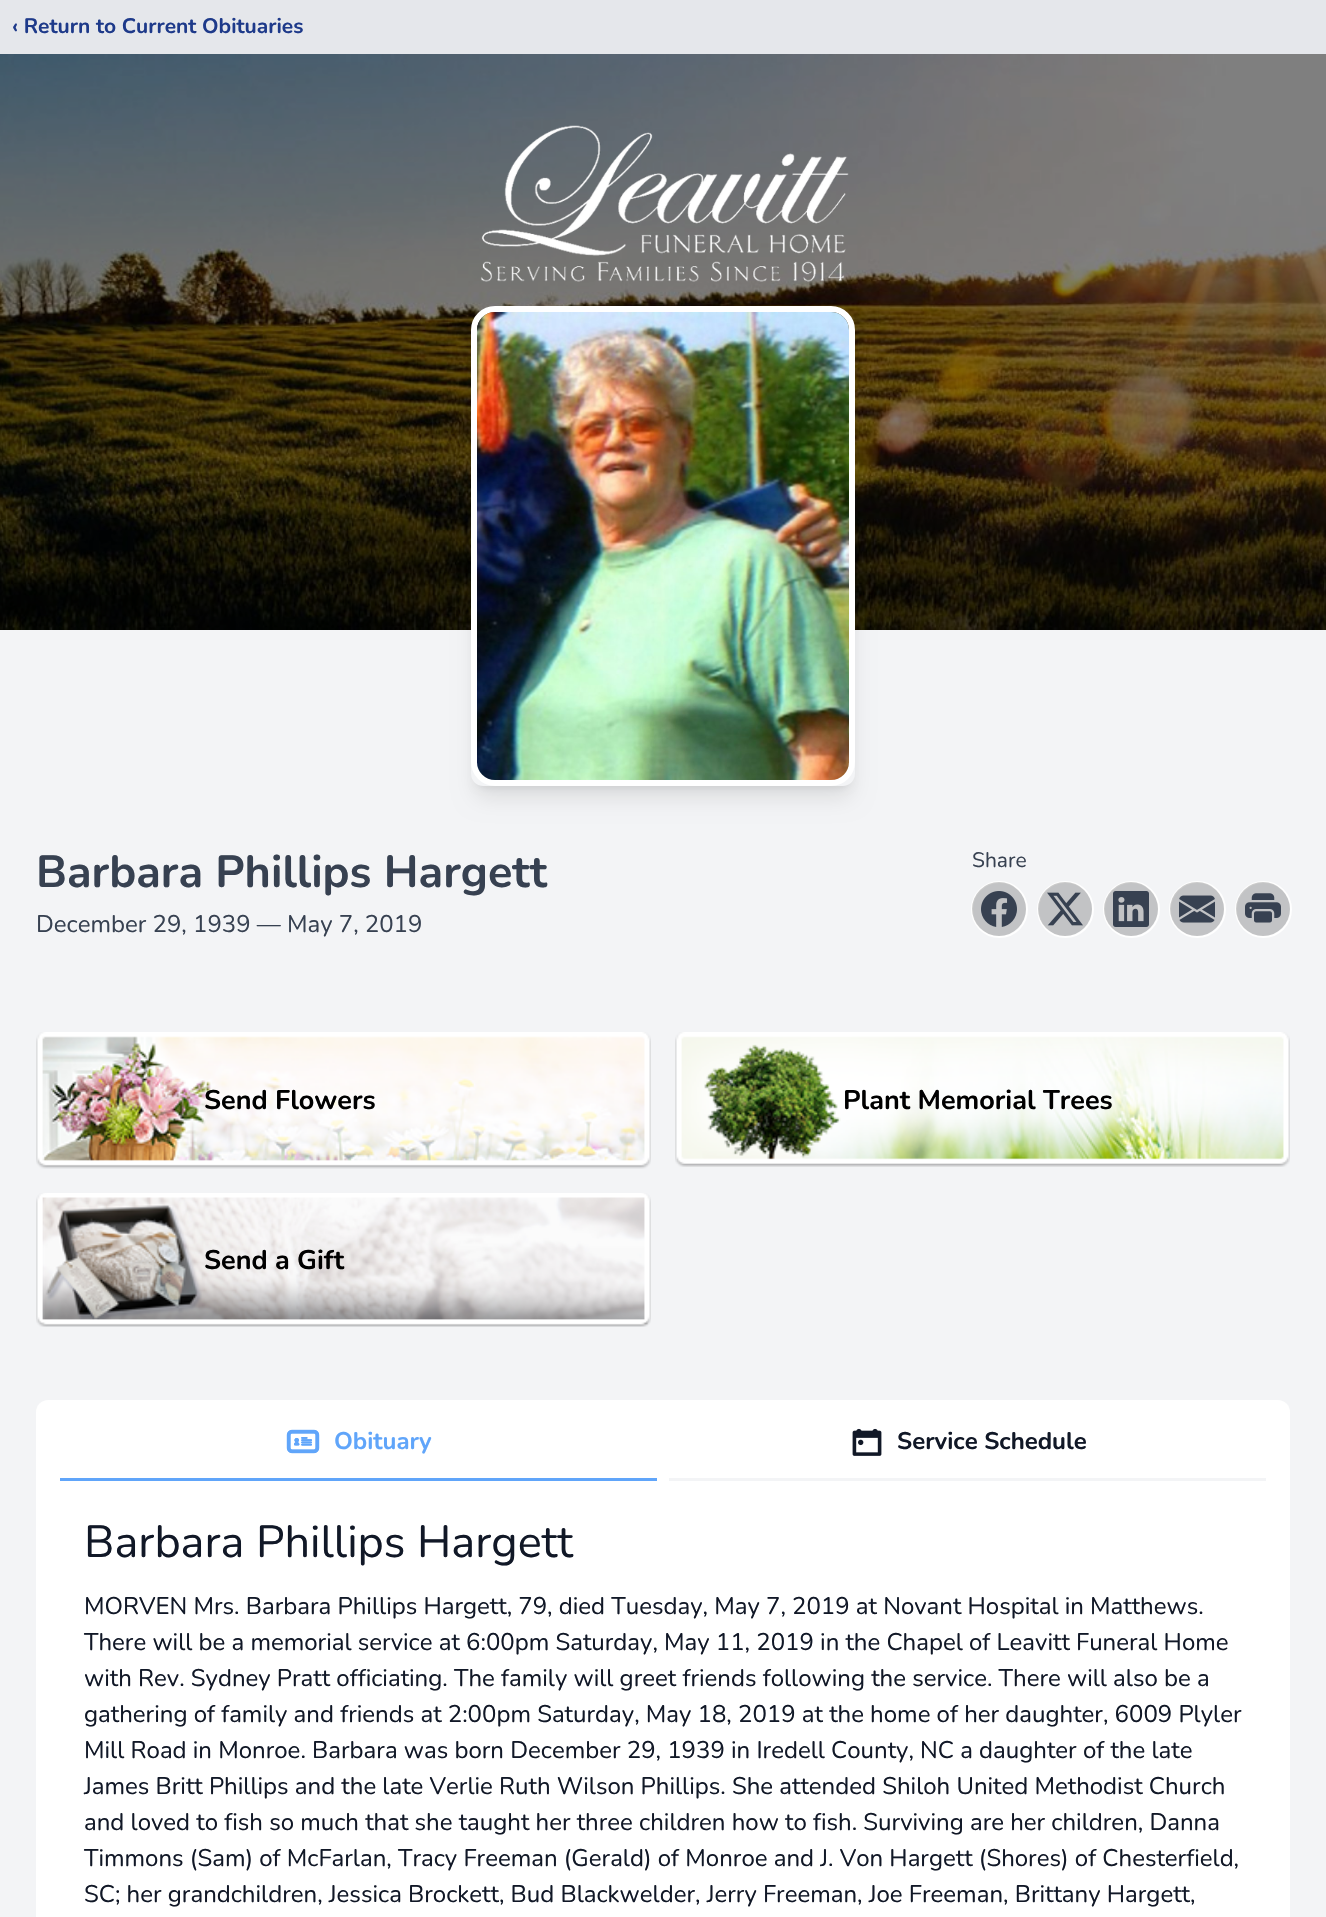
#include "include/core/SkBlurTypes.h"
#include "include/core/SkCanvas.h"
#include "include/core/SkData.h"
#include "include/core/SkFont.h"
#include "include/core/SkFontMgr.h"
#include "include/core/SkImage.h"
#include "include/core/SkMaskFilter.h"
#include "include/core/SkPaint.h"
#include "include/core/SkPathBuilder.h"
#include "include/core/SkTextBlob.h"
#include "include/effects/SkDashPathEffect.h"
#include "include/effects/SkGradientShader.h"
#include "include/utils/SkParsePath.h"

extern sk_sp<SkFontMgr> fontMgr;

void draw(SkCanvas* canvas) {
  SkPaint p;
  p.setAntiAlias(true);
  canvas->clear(SkColorSetRGB(243, 244, 246));
  p.setColor(SkColorSetRGB(229, 231, 235));
  canvas->drawRect(SkRect::MakeLTRB(0, 0, 1326, 54), p);
  canvas->drawImageRect(SkImages::DeferredFromEncodedData(SkData::MakeFromFileName("images/1.png")), SkRect::MakeLTRB(0, 54, 1326, 630), SkSamplingOptions());
  canvas->drawImageRect(SkImages::DeferredFromEncodedData(SkData::MakeFromFileName("images/2.png")), SkRect::MakeLTRB(480, 125, 849, 282), SkSamplingOptions());
  canvas->save();
  canvas->clipPath(SkPathBuilder(SkPathFillType::kEvenOdd).moveTo(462, 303).lineTo(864, 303).lineTo(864, 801).lineTo(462, 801).close().moveTo(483, 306).lineTo(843, 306).cubicTo(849.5f, 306, 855, 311.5f, 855, 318).lineTo(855, 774).cubicTo(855, 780.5f, 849.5f, 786, 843, 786).lineTo(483, 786).cubicTo(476.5f, 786, 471, 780.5f, 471, 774).lineTo(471, 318).cubicTo(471, 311.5f, 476.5f, 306, 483, 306).close().detach(), true);
  p.setColor(SkColorSetARGB(26, 0, 0, 0));
  p.setMaskFilter(SkMaskFilter::MakeBlur(kNormal_SkBlurStyle, 4.5f));
  canvas->drawRoundRect(SkRect::MakeLTRB(477, 318, 849, 786), 6, 6, p);
  p.setMaskFilter(nullptr);
  canvas->restore();
  canvas->save();
  canvas->clipPath(SkPathBuilder(SkPathFillType::kEvenOdd).moveTo(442, 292).lineTo(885, 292).lineTo(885, 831).lineTo(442, 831).close().moveTo(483, 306).lineTo(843, 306).cubicTo(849.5f, 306, 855, 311.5f, 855, 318).lineTo(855, 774).cubicTo(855, 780.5f, 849.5f, 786, 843, 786).lineTo(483, 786).cubicTo(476.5f, 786, 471, 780.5f, 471, 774).lineTo(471, 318).cubicTo(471, 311.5f, 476.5f, 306, 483, 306).close().detach(), true);
  p.setMaskFilter(SkMaskFilter::MakeBlur(kNormal_SkBlurStyle, 11));
  canvas->drawRoundRect(SkRect::MakeLTRB(476, 326, 851, 797), 8, 8, p);
  p.setMaskFilter(nullptr);
  canvas->restore();
  p.setStyle(SkPaint::kStroke_Style);
  p.setStrokeWidth(6);
  p.setColor(SK_ColorWHITE);
  canvas->drawRoundRect(SkRect::MakeLTRB(474, 309, 852, 783), 21, 21, p);
  canvas->drawImageRect(SkImages::DeferredFromEncodedData(SkData::MakeFromFileName("images/3.png")), SkRect::MakeLTRB(477, 312, 849, 780), SkSamplingOptions());
  p.setStrokeWidth(2);
  canvas->drawCircle(999.5f, 909.5f, 27.5f, p);
  p.setStyle(SkPaint::kFill_Style);
  p.setColor(SkColorSetARGB(51, 0, 0, 0));
  canvas->drawCircle(999, 909, 27, p);
  canvas->drawImageRect(SkImages::DeferredFromEncodedData(SkData::MakeFromFileName("images/4.png")), SkRect::MakeLTRB(981, 891, 1017, 927), SkSamplingOptions());
  p.setStyle(SkPaint::kStroke_Style);
  p.setColor(SK_ColorWHITE);
  canvas->drawCircle(1065.5f, 909.5f, 27.5f, p);
  p.setStyle(SkPaint::kFill_Style);
  p.setColor(SkColorSetARGB(51, 0, 0, 0));
  canvas->drawCircle(1065, 909, 27, p);
  canvas->drawImageRect(SkImages::DeferredFromEncodedData(SkData::MakeFromFileName("images/5.png")), SkRect::MakeLTRB(1047, 892, 1083, 926), SkSamplingOptions());
  p.setStyle(SkPaint::kStroke_Style);
  p.setColor(SK_ColorWHITE);
  canvas->drawCircle(1131.5f, 909.5f, 27.5f, p);
  p.setStyle(SkPaint::kFill_Style);
  p.setColor(SkColorSetARGB(51, 0, 0, 0));
  canvas->drawCircle(1131, 909, 27, p);
  canvas->drawImageRect(SkImages::DeferredFromEncodedData(SkData::MakeFromFileName("images/6.png")), SkRect::MakeLTRB(1113, 891, 1149, 927), SkSamplingOptions());
  p.setStyle(SkPaint::kStroke_Style);
  p.setColor(SK_ColorWHITE);
  canvas->drawCircle(1197.5f, 909.5f, 27.5f, p);
  p.setStyle(SkPaint::kFill_Style);
  p.setColor(SkColorSetARGB(51, 0, 0, 0));
  canvas->drawCircle(1197, 909, 27, p);
  canvas->drawImageRect(SkImages::DeferredFromEncodedData(SkData::MakeFromFileName("images/7.png")), SkRect::MakeLTRB(1179, 895, 1215, 923), SkSamplingOptions());
  p.setStyle(SkPaint::kStroke_Style);
  p.setColor(SK_ColorWHITE);
  canvas->drawCircle(1263.5f, 909.5f, 27.5f, p);
  p.setStyle(SkPaint::kFill_Style);
  p.setColor(SkColorSetARGB(51, 0, 0, 0));
  canvas->drawCircle(1263, 909, 27, p);
  canvas->drawImageRect(SkImages::DeferredFromEncodedData(SkData::MakeFromFileName("images/8.png")), SkRect::MakeLTRB(1245, 893, 1281, 923), SkSamplingOptions());
  canvas->drawImageRect(SkImages::DeferredFromEncodedData(SkData::MakeFromFileName("images/9.png")), SkRect::MakeLTRB(36, 1032, 651, 1169), SkSamplingOptions());
  canvas->drawImageRect(SkImages::DeferredFromEncodedData(SkData::MakeFromFileName("images/10.png")), SkRect::MakeLTRB(675, 1032, 1290, 1167), SkSamplingOptions());
  canvas->drawImageRect(SkImages::DeferredFromEncodedData(SkData::MakeFromFileName("images/11.png")), SkRect::MakeLTRB(36, 1193, 651, 1327), SkSamplingOptions());
  p.setColor(SK_ColorWHITE);
  canvas->drawRoundRect(SkRect::MakeLTRB(36, 1400, 1290, 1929), 12, 12, p);
  p.setColor(SkColorSetRGB(96, 165, 250));
  canvas->drawRect(SkRect::MakeLTRB(60, 1478, 657, 1481), p);
  canvas->drawImageRect(SkImages::DeferredFromEncodedData(SkData::MakeFromFileName("images/12.png")), SkRect::MakeLTRB(286, 1429, 320, 1454), SkSamplingOptions());
  p.setColor(SkColorSetRGB(243, 244, 246));
  canvas->drawRect(SkRect::MakeLTRB(669, 1478, 1266, 1481), p);
  canvas->drawImageRect(SkImages::DeferredFromEncodedData(SkData::MakeFromFileName("images/13.png")), SkRect::MakeLTRB(852, 1428, 882, 1456), SkSamplingOptions());
  SkFont font1(fontMgr->matchFamilyStyle("Nunito", SkFontStyle::Bold()), 21);
  font1.setSubpixel(true);
  p.setColor(SkColorSetRGB(30, 58, 138));
  canvas->drawString("‹ Return to Current Obituaries", 12, 33, font1, p);
  SkFont font2(fontMgr->matchFamilyStyle("Nunito", SkFontStyle::Bold()), 45);
  font2.setSubpixel(true);
  p.setColor(SkColorSetRGB(55, 65, 81));
  canvas->drawString("Barbara Phillips Hargett", 36, 887, font2, p);
  SkFont font3(fontMgr->matchFamilyStyle("Nunito", SkFontStyle::Normal()), 24);
  font3.setSubpixel(true);
  canvas->drawString("December 29, 1939 — May 7, 2019", 36, 932, font3, p);
  SkFont font4(fontMgr->matchFamilyStyle("Nunito", SkFontStyle::Normal()), 21);
  font4.setSubpixel(true);
  canvas->drawString("Share", 972, 867, font4, p);
  SkFont font5(fontMgr->matchFamilyStyle("Nunito", SkFontStyle::Bold()), 27);
  font5.setSubpixel(true);
  p.setColor(SK_ColorBLACK);
  canvas->drawString("Send Flowers", 204, 1109, font5, p);
  canvas->drawString("Plant Memorial Trees", 843, 1109, font5, p);
  canvas->drawString("Send a Gift", 204, 1269, font5, p);
  SkFont font6(fontMgr->matchFamilyStyle("Nunito", SkFontStyle::Bold()), 24);
  font6.setSubpixel(true);
  p.setColor(SkColorSetRGB(96, 165, 250));
  canvas->drawString("Obituary", 334, 1449, font6, p);
  p.setColor(SkColorSetRGB(17, 24, 39));
  canvas->drawString("Service Schedule", 897, 1449, font6, p);
  SkFont font7(fontMgr->matchFamilyStyle("Nunito", SkFontStyle::Normal()), 45);
  font7.setSubpixel(true);
  canvas->drawString("Barbara Phillips Hargett", 84, 1557, font7, p);
  canvas->drawString("MORVEN Mrs. Barbara Phillips Hargett, 79, died Tuesday, May 7, 2019 at Novant Hospital in Matthews.", 84, 1614, font3, p);
  canvas->drawString("There will be a memorial service at 6:00pm Saturday, May 11, 2019 in the Chapel of Leavitt Funeral Home", 84, 1650, font3, p);
  canvas->drawString("with Rev. Sydney Pratt officiating. The family will greet friends following the service. There will also be a", 84, 1686, font3, p);
  canvas->drawString("gathering of family and friends at 2:00pm Saturday, May 18, 2019 at the home of her daughter, 6009 Plyler", 84, 1722, font3, p);
  canvas->drawString("Mill Road in Monroe. Barbara was born December 29, 1939 in Iredell County, NC a daughter of the late", 84, 1758, font3, p);
  canvas->drawString("James Britt Phillips and the late Verlie Ruth Wilson Phillips. She attended Shiloh United Methodist Church", 84, 1794, font3, p);
  canvas->drawString("and loved to fish so much that she taught her three children how to fish. Surviving are her children, Danna", 84, 1830, font3, p);
  canvas->drawString("Timmons (Sam) of McFarlan, Tracy Freeman (Gerald) of Monroe and J. Von Hargett (Shores) of Chesterfield,", 84, 1866, font3, p);
  canvas->drawString("SC; her grandchildren, Jessica Brockett, Bud Blackwelder, Jerry Freeman, Joe Freeman, Brittany Hargett,", 84, 1902, font3, p);
}
